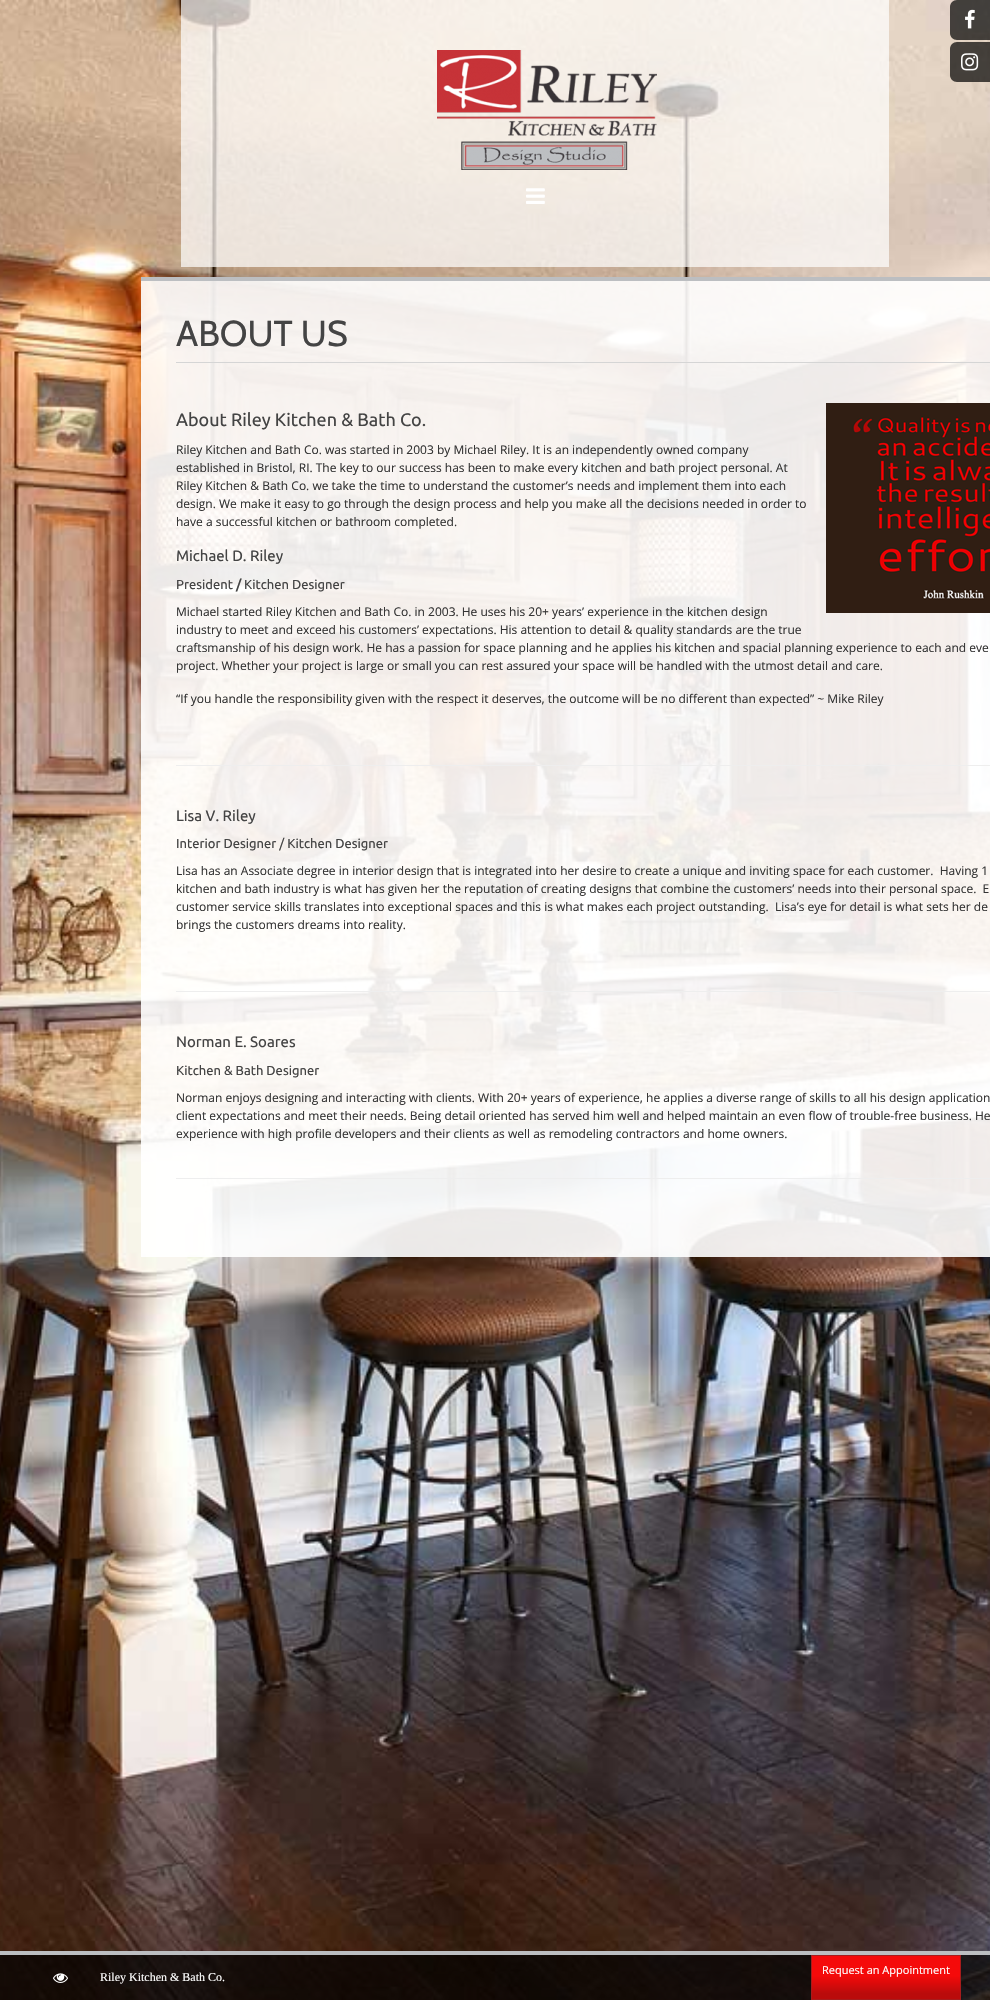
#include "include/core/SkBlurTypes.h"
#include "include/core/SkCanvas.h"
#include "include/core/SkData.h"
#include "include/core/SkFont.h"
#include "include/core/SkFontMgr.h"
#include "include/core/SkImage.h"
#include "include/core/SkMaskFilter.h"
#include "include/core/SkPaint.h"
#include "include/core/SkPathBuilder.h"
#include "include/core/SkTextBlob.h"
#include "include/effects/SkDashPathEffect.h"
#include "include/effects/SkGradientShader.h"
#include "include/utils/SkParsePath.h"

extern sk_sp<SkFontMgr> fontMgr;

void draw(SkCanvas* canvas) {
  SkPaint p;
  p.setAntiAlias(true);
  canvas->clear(SK_ColorWHITE);
  canvas->drawImageRect(SkImages::DeferredFromEncodedData(SkData::MakeFromFileName("images/1.png")), SkRect::MakeLTRB(0, 0, 990, 2000), SkSamplingOptions());
  p.setColor(SkColorSetARGB(179, 255, 255, 255));
  canvas->drawRect(SkRect::MakeLTRB(181, 0, 889, 267), p);
  canvas->drawImageRect(SkImages::DeferredFromEncodedData(SkData::MakeFromFileName("images/2.png")), SkRect::MakeLTRB(437, 50, 657, 170), SkSamplingOptions());
  canvas->drawImageRect(SkImages::DeferredFromEncodedData(SkData::MakeFromFileName("images/3.png")), SkRect::MakeLTRB(526, 188, 545, 204), SkSamplingOptions());
  p.setColor(SkColorSetARGB(179, 0, 0, 0));
  canvas->drawPath(SkPathBuilder().moveTo(957, 0).lineTo(990, 0).lineTo(990, 40).lineTo(957, 40).cubicTo(953, 40, 950, 37, 950, 33).lineTo(950, 7).cubicTo(950, 3, 953, 0, 957, 0).close().detach(), p);
  canvas->drawImageRect(SkImages::DeferredFromEncodedData(SkData::MakeFromFileName("images/4.png")), SkRect::MakeLTRB(965, 9, 975, 29), SkSamplingOptions());
  canvas->drawPath(SkPathBuilder().moveTo(957, 42).lineTo(990, 42).lineTo(990, 82).lineTo(957, 82).cubicTo(953, 82, 950, 79, 950, 75).lineTo(950, 49).cubicTo(950, 45, 953, 42, 957, 42).close().detach(), p);
  canvas->drawImageRect(SkImages::DeferredFromEncodedData(SkData::MakeFromFileName("images/5.png")), SkRect::MakeLTRB(961, 53, 979, 71), SkSamplingOptions());
  p.setColor(SkColorSetARGB(230, 255, 255, 255));
  canvas->drawRect(SkRect::MakeLTRB(141, 281, 990, 1257), p);
  p.setColor(SkColorSetRGB(188, 190, 193));
  canvas->drawRect(SkRect::MakeLTRB(141, 277, 990, 281), p);
  p.setColor(SkColorSetRGB(213, 213, 213));
  canvas->drawRect(SkRect::MakeLTRB(176, 362, 990, 363), p);
  p.setColor(SkColorSetRGB(238, 238, 238));
  canvas->drawRect(SkRect::MakeLTRB(176, 1178, 990, 1179), p);
  canvas->drawImageRect(SkImages::DeferredFromEncodedData(SkData::MakeFromFileName("images/6.png")), SkRect::MakeLTRB(826, 403, 990, 613), SkSamplingOptions());
  canvas->drawRect(SkRect::MakeLTRB(176, 765, 990, 766), p);
  canvas->drawRect(SkRect::MakeLTRB(176, 991, 990, 992), p);
  p.setColor(SkColorSetARGB(179, 0, 0, 0));
  canvas->drawRect(SkRect::MakeLTRB(0, 1955, 990, 2000), p);
  p.setColor(SkColorSetRGB(188, 190, 193));
  canvas->drawRect(SkRect::MakeLTRB(0, 1951, 990, 1955), p);
  canvas->drawImageRect(SkImages::DeferredFromEncodedData(SkData::MakeFromFileName("images/7.png")), SkRect::MakeLTRB(53, 1973, 68, 1983), SkSamplingOptions());
  {
    const SkColor colors[] = {SkColorSetRGB(186, 11, 11), SkColorSetRGB(245, 10, 10)};
    const float stops[] = {0.13f, 0.54f};
    const SkPoint ends[] = {{812, 1999}, {812, 1956}};
    p.setShader(SkGradientShader::MakeLinear(ends, colors, stops, 2, SkTileMode::kClamp));
    p.setAlpha(255);
  }
  canvas->drawRect(SkRect::MakeLTRB(812, 1956, 960, 1999), p);
  p.setStyle(SkPaint::kStroke_Style);
  p.setStrokeWidth(1);
  p.setShader(nullptr);
  p.setColor(SkColorSetRGB(166, 28, 28));
  canvas->drawRect(SkRect::MakeLTRB(811.5f, 1955.5f, 960.5f, 1999.5f), p);
  SkFont font1(fontMgr->matchFamilyStyle("Cabin", SkFontStyle::Normal()), 36);
  font1.setSubpixel(true);
  p.setStyle(SkPaint::kFill_Style);
  p.setColor(SkColorSetRGB(68, 68, 68));
  canvas->drawString("ABOUT US", 176, 346, font1, p);
  SkFont font2(fontMgr->matchFamilyStyle("Ubuntu", SkFontStyle::Normal()), 18);
  font2.setSubpixel(true);
  canvas->drawString("About Riley Kitchen & Bath Co.", 176, 426, font2, p);
  SkFont font3(fontMgr->matchFamilyStyle("Open Sans", SkFontStyle::Normal()), 12);
  font3.setSubpixel(true);
  p.setColor(SkColorSetRGB(51, 51, 51));
  canvas->drawString("Riley Kitchen and Bath Co. was started in 2003 by Michael Riley. It is an independently owned company", 176, 454, font3, p);
  canvas->drawString("established in Bristol, RI. The key to our success has been to make every kitchen and bath project personal. At", 176, 472, font3, p);
  canvas->drawString("Riley Kitchen & Bath Co. we take the time to understand the customer’s needs and implement them into each", 176, 490, font3, p);
  canvas->drawString("design. We make it easy to go through the design process and help you make all the decisions needed in order to", 176, 508, font3, p);
  canvas->drawString("have a successful kitchen or bathroom completed.", 176, 526, font3, p);
  SkFont font4(fontMgr->matchFamilyStyle("Ubuntu", SkFontStyle::Normal()), 15);
  font4.setSubpixel(true);
  p.setColor(SkColorSetRGB(68, 68, 68));
  canvas->drawString("Michael D. Riley", 176, 561, font4, p);
  SkFont font5(fontMgr->matchFamilyStyle("Ubuntu", SkFontStyle::Normal()), 13);
  font5.setSubpixel(true);
  canvas->drawString("President", 176, 589, font5, p);
  SkFont font6(fontMgr->matchFamilyStyle("Ubuntu", SkFontStyle::Bold()), 13);
  font6.setSubpixel(true);
  canvas->drawString("/", 236, 589, font6, p);
  canvas->drawString("Kitchen Designer", 244, 589, font5, p);
  p.setColor(SkColorSetRGB(51, 51, 51));
  canvas->drawString("Michael started Riley Kitchen and Bath Co. in 2003. He uses his 20+ years’ experience in the kitchen design", 176, 616, font3, p);
  canvas->drawString("industry to meet and exceed his customers’ expectations. His attention to detail & quality standards are the true", 176, 634, font3, p);
  canvas->drawString("craftsmanship of his design work. He has a passion for space planning and he applies his kitchen and spacial planning experience to each and eve", 176, 652, font3, p);
  canvas->drawString("project. Whether your project is large or small you can rest assured your space will be handled with the utmost detail and care.", 176, 670, font3, p);
  canvas->drawString("“If you handle the responsibility given with the respect it deserves, the outcome will be no different than expected” ~ Mike Riley", 176, 703, font3, p);
  p.setColor(SkColorSetRGB(68, 68, 68));
  canvas->drawString("Lisa V. Riley", 176, 821, font4, p);
  canvas->drawString("Interior Designer / Kitchen Designer", 176, 848, font5, p);
  p.setColor(SkColorSetRGB(51, 51, 51));
  canvas->drawString("Lisa has an Associate degree in interior design that is integrated into her desire to create a unique and inviting space for each customer.  Having 1", 176, 875, font3, p);
  canvas->drawString("kitchen and bath industry is what has given her the reputation of creating designs that combine the customers’ needs into their personal space.  E", 176, 893, font3, p);
  canvas->drawString("customer service skills translates into exceptional spaces and this is what makes each project outstanding.  Lisa’s eye for detail is what sets her de", 176, 911, font3, p);
  canvas->drawString("brings the customers dreams into reality.", 176, 929, font3, p);
  p.setColor(SkColorSetRGB(68, 68, 68));
  canvas->drawString("Norman E. Soares", 176, 1047, font4, p);
  canvas->drawString("Kitchen & Bath Designer", 176, 1075, font5, p);
  p.setColor(SkColorSetRGB(51, 51, 51));
  canvas->drawString("Norman enjoys designing and interacting with clients. With 20+ years of experience, he applies a diverse range of skills to all his design application", 176, 1102, font3, p);
  canvas->drawString("client expectations and meet their needs. Being detail oriented has served him well and helped maintain an even flow of trouble-free business. He", 176, 1120, font3, p);
  canvas->drawString("experience with high profile developers and their clients as well as remodeling contractors and home owners.", 176, 1138, font3, p);
  SkFont font7(fontMgr->matchFamilyStyle("Liberation Serif", SkFontStyle::Normal()), 12);
  font7.setSubpixel(true);
  p.setColor(SK_ColorWHITE);
  canvas->drawString("Riley Kitchen & Bath Co.", 100, 1981, font7, p);
  SkFont font8(fontMgr->matchFamilyStyle("Open Sans", SkFontStyle::Normal()), 11);
  font8.setSubpixel(true);
  canvas->drawString("Request an Appointment", 822, 1974, font8, p);
}
